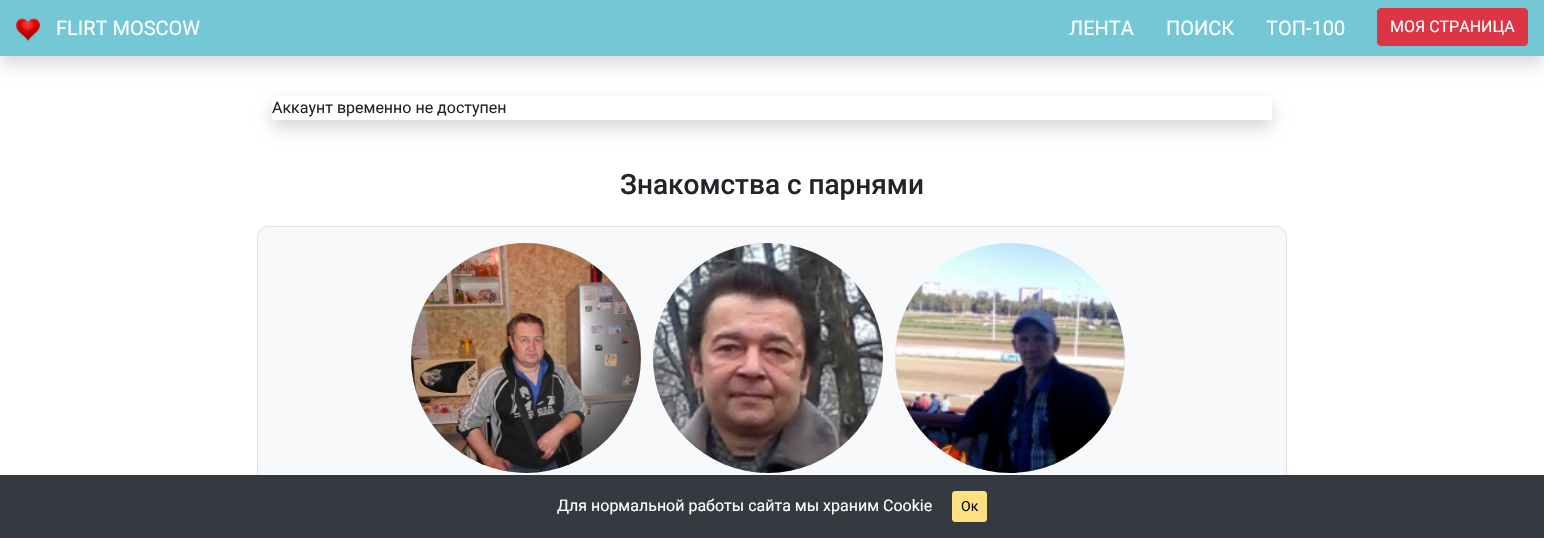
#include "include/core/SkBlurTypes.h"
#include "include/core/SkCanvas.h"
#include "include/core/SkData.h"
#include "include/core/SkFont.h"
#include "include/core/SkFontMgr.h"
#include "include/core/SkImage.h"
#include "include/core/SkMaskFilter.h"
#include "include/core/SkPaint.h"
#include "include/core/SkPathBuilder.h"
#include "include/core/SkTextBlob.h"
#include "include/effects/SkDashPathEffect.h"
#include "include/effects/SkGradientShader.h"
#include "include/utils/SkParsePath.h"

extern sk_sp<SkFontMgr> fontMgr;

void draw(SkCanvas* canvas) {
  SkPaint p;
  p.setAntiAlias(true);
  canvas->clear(SK_ColorWHITE);
  p.setColor(SkColorSetARGB(38, 0, 0, 0));
  p.setMaskFilter(SkMaskFilter::MakeBlur(kNormal_SkBlurStyle, 8));
  canvas->drawRect(SkRect::MakeLTRB(0, 8, 1544, 64), p);
  p.setMaskFilter(nullptr);
  p.setColor(SkColorSetRGB(116, 199, 212));
  canvas->drawRect(SkRect::MakeLTRB(0, 0, 1544, 56), p);
  canvas->drawImageRect(SkImages::DeferredFromEncodedData(SkData::MakeFromFileName("images/1.png")), SkRect::MakeLTRB(16, 18, 40, 41), SkSamplingOptions());
  p.setColor(SkColorSetRGB(220, 53, 69));
  canvas->drawRoundRect(SkRect::MakeLTRB(1377.5f, 8.5f, 1527.5f, 45.5f), 3.5f, 3.5f, p);
  p.setStyle(SkPaint::kStroke_Style);
  p.setStrokeWidth(1);
  canvas->drawRoundRect(SkRect::MakeLTRB(1377.5f, 8.5f, 1527.5f, 45.5f), 3.5f, 3.5f, p);
  canvas->save();
  canvas->clipPath(SkPathBuilder(SkPathFillType::kEvenOdd).moveTo(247, 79).lineTo(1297, 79).lineTo(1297, 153).lineTo(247, 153).close().moveTo(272, 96).lineTo(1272, 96).lineTo(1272, 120).lineTo(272, 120).close().detach(), true);
  p.setStyle(SkPaint::kFill_Style);
  p.setColor(SkColorSetARGB(38, 0, 0, 0));
  p.setMaskFilter(SkMaskFilter::MakeBlur(kNormal_SkBlurStyle, 8));
  canvas->drawRect(SkRect::MakeLTRB(272, 104, 1272, 128), p);
  p.setMaskFilter(nullptr);
  canvas->restore();
  p.setColor(SkColorSetRGB(248, 249, 250));
  canvas->drawRoundRect(SkRect::MakeLTRB(257.5f, 226.5f, 1286.5f, 497.5f), 10.5f, 10.5f, p);
  p.setStyle(SkPaint::kStroke_Style);
  p.setColor(SkColorSetRGB(222, 226, 230));
  canvas->drawRoundRect(SkRect::MakeLTRB(257.5f, 226.5f, 1286.5f, 497.5f), 10.5f, 10.5f, p);
  canvas->drawImageRect(SkImages::DeferredFromEncodedData(SkData::MakeFromFileName("images/2.png")), SkRect::MakeLTRB(411, 243, 641, 473), SkSamplingOptions());
  canvas->drawImageRect(SkImages::DeferredFromEncodedData(SkData::MakeFromFileName("images/3.png")), SkRect::MakeLTRB(653, 243, 883, 473), SkSamplingOptions());
  canvas->drawImageRect(SkImages::DeferredFromEncodedData(SkData::MakeFromFileName("images/4.png")), SkRect::MakeLTRB(895, 243, 1125, 473), SkSamplingOptions());
  p.setStyle(SkPaint::kFill_Style);
  p.setColor(SkColorSetRGB(52, 58, 64));
  canvas->drawRect(SkRect::MakeLTRB(0, 475, 1544, 538), p);
  p.setColor(SkColorSetRGB(255, 223, 127));
  canvas->drawRoundRect(SkRect::MakeLTRB(952.5f, 491.5f, 986.5f, 521.5f), 2.5f, 2.5f, p);
  p.setStyle(SkPaint::kStroke_Style);
  canvas->drawRoundRect(SkRect::MakeLTRB(952.5f, 491.5f, 986.5f, 521.5f), 2.5f, 2.5f, p);
  SkFont font1(fontMgr->matchFamilyStyle("Roboto", SkFontStyle::Normal()), 20);
  font1.setSubpixel(true);
  p.setStyle(SkPaint::kFill_Style);
  p.setColor(SK_ColorWHITE);
  canvas->drawString("FLIRT MOSCOW", 56, 35, font1, p);
  canvas->drawString("ЛЕНТА", 1069, 35, font1, p);
  canvas->drawString("ПОИСК", 1166, 35, font1, p);
  canvas->drawString("ТОП-100", 1266, 35, font1, p);
  SkFont font2(fontMgr->matchFamilyStyle("Roboto", SkFontStyle::Normal()), 16);
  font2.setSubpixel(true);
  canvas->drawString("МОЯ СТРАНИЦА", 1390, 32, font2, p);
  p.setColor(SkColorSetRGB(33, 37, 41));
  canvas->drawString("Аккаунт временно не доступен", 272, 113, font2, p);
  SkFont font3(fontMgr->matchFamilyStyle("Roboto", SkFontStyle(500, SkFontStyle::kNormal_Width, SkFontStyle::kUpright_Slant)), 28);
  font3.setSubpixel(true);
  canvas->drawString("Знакомства с парнями", 620, 194, font3, p);
  p.setColor(SK_ColorWHITE);
  canvas->drawString("Для нормальной работы сайта мы храним Cookie", 557, 511, font2, p);
  SkFont font4(fontMgr->matchFamilyStyle("Roboto", SkFontStyle::Normal()), 14);
  font4.setSubpixel(true);
  p.setColor(SK_ColorBLACK);
  canvas->drawString("Ок", 961, 511, font4, p);
}
